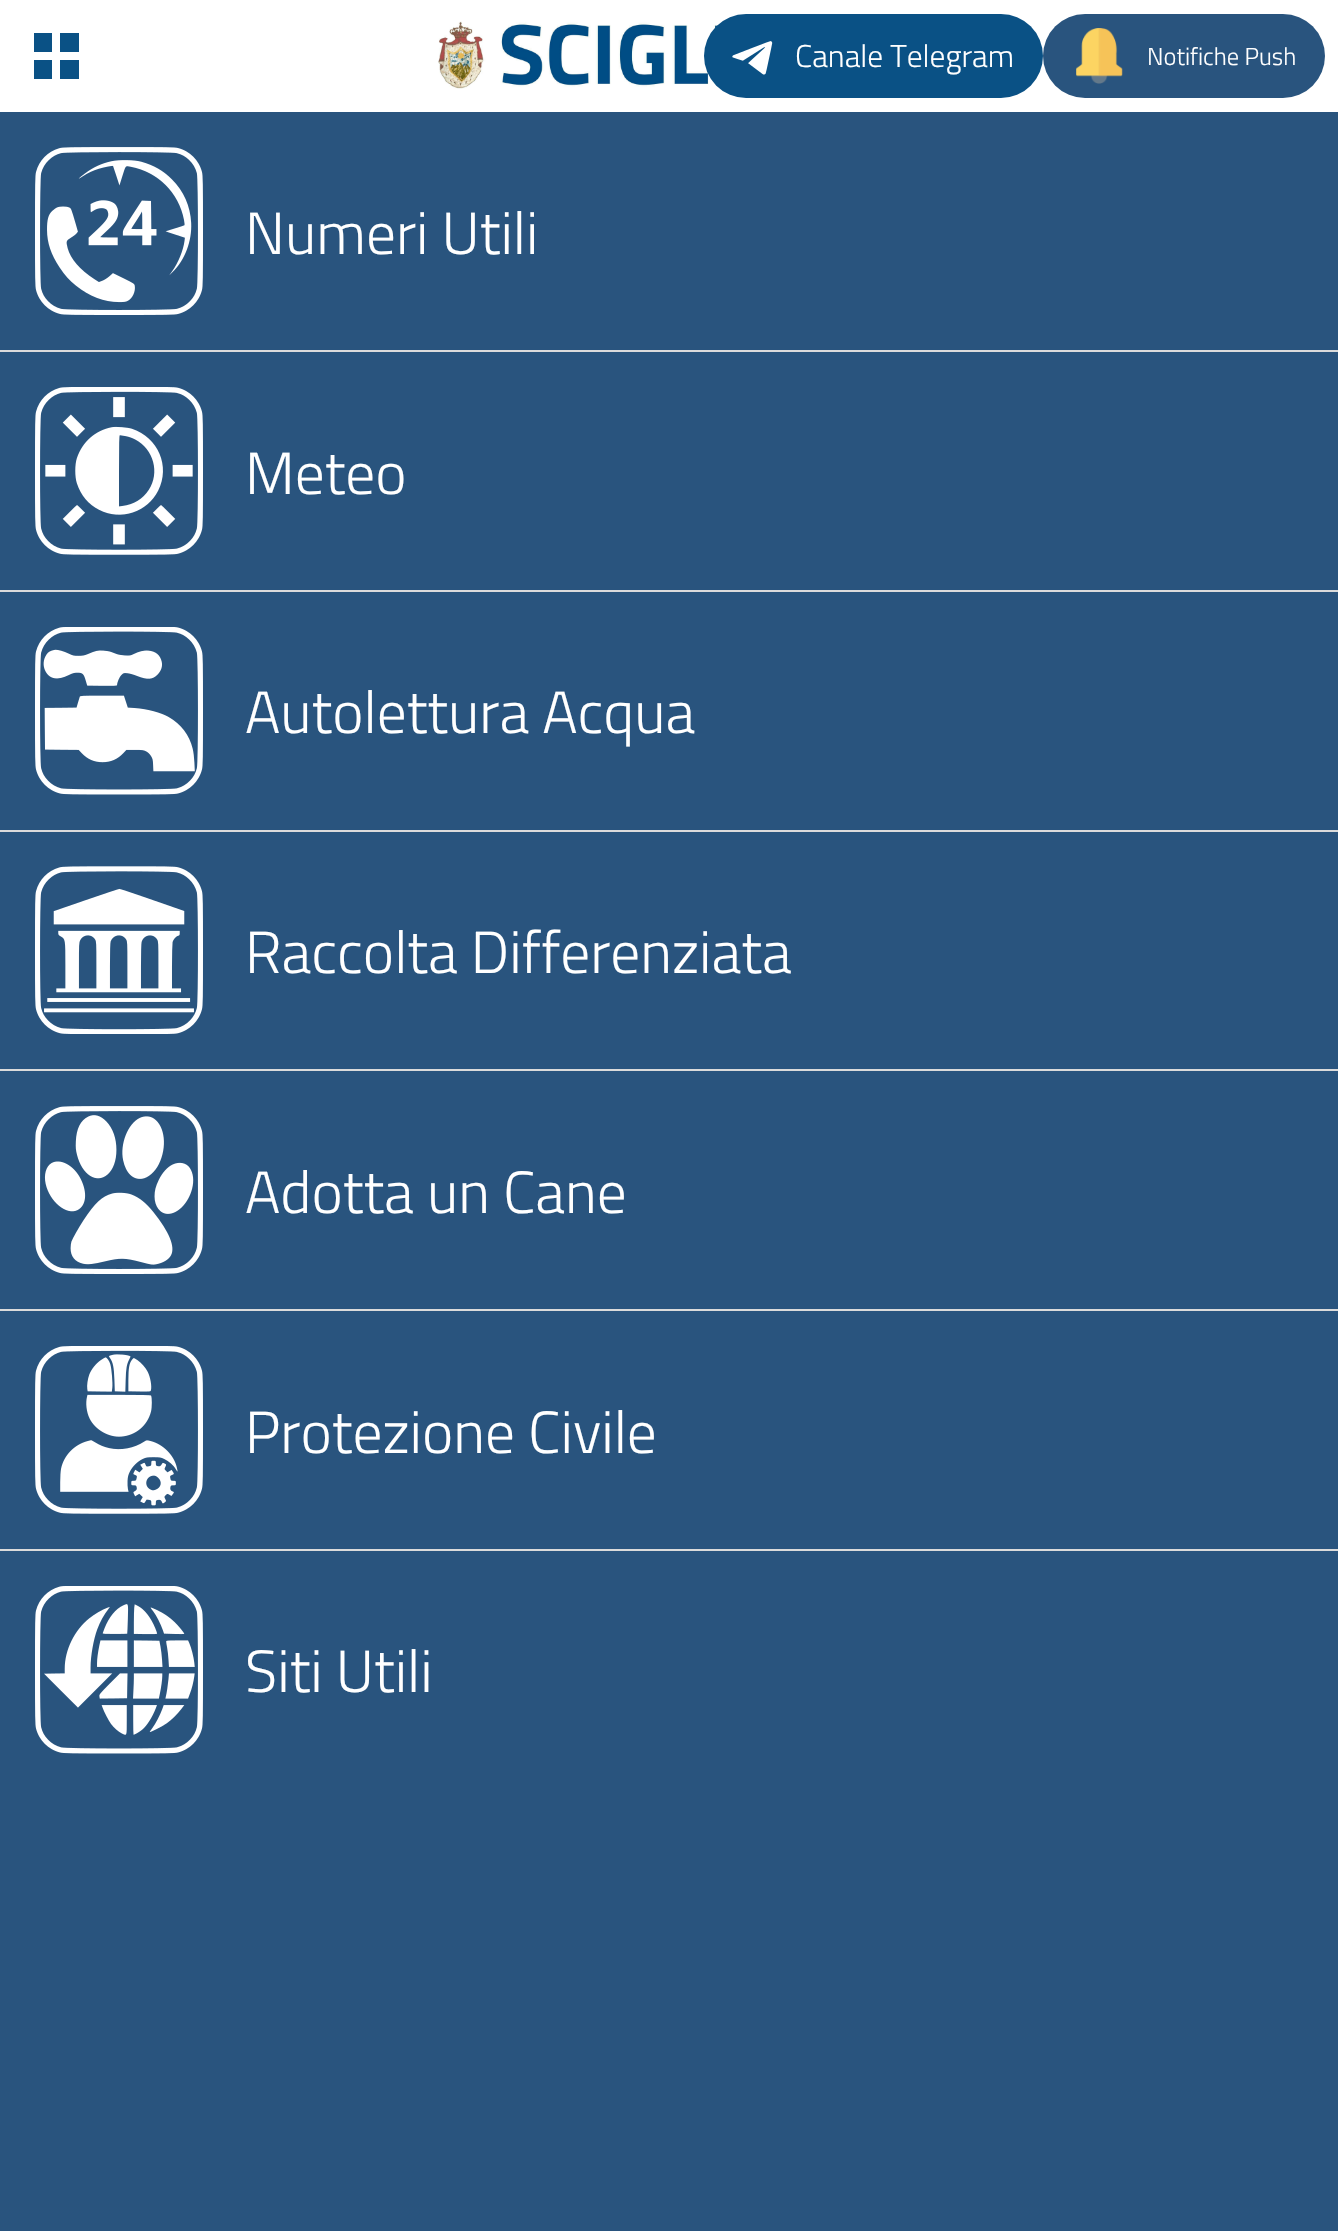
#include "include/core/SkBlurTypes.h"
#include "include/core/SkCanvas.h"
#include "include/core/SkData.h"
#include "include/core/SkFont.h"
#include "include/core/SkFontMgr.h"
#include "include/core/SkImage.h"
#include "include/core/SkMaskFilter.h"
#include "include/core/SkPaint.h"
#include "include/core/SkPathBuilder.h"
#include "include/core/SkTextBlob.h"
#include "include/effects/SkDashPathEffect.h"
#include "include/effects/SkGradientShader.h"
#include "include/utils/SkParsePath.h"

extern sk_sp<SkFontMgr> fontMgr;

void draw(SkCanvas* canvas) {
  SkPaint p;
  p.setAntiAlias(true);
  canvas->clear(SK_ColorWHITE);
  p.setColor(SkColorSetRGB(10, 81, 133));
  canvas->drawPath(SkPathBuilder().moveTo(34, 33).lineTo(52, 33).lineTo(52, 52).lineTo(34, 52).close().moveTo(60, 33).lineTo(79, 33).lineTo(79, 52).lineTo(60, 52).close().moveTo(34, 60).lineTo(52, 60).lineTo(52, 79).lineTo(34, 79).close().moveTo(60, 60).lineTo(79, 60).lineTo(79, 79).lineTo(60, 79).close().detach(), p);
  canvas->drawImageRect(SkImages::DeferredFromEncodedData(SkData::MakeFromFileName("images/1.png")), SkRect::MakeLTRB(438, 21, 723, 89), SkSamplingOptions());
  canvas->drawRoundRect(SkRect::MakeLTRB(704, 14, 1043, 98), 42, 42, p);
  canvas->drawImageRect(SkImages::DeferredFromEncodedData(SkData::MakeFromFileName("images/2.png")), SkRect::MakeLTRB(732, 41, 773, 75), SkSamplingOptions());
  p.setColor(SkColorSetRGB(41, 84, 126));
  canvas->drawRoundRect(SkRect::MakeLTRB(1043, 14, 1325, 98), 42, 42, p);
  canvas->drawImageRect(SkImages::DeferredFromEncodedData(SkData::MakeFromFileName("images/3.png")), SkRect::MakeLTRB(1076, 28, 1123, 84), SkSamplingOptions());
  canvas->drawRect(SkRect::MakeLTRB(0, 112, 1338, 2231), p);
  p.setColor(SkColorSetRGB(219, 219, 219));
  canvas->drawRect(SkRect::MakeLTRB(0, 350, 1338, 352), p);
  canvas->drawImageRect(SkImages::DeferredFromEncodedData(SkData::MakeFromFileName("images/4.png")), SkRect::MakeLTRB(35, 147, 203, 315), SkSamplingOptions());
  canvas->drawRect(SkRect::MakeLTRB(0, 590, 1338, 592), p);
  canvas->drawImageRect(SkImages::DeferredFromEncodedData(SkData::MakeFromFileName("images/5.png")), SkRect::MakeLTRB(35, 387, 203, 555), SkSamplingOptions());
  canvas->drawRect(SkRect::MakeLTRB(0, 830, 1338, 832), p);
  canvas->drawImageRect(SkImages::DeferredFromEncodedData(SkData::MakeFromFileName("images/6.png")), SkRect::MakeLTRB(35, 627, 203, 795), SkSamplingOptions());
  canvas->drawRect(SkRect::MakeLTRB(0, 1069, 1338, 1071), p);
  canvas->drawImageRect(SkImages::DeferredFromEncodedData(SkData::MakeFromFileName("images/7.png")), SkRect::MakeLTRB(35, 866, 203, 1034), SkSamplingOptions());
  canvas->drawRect(SkRect::MakeLTRB(0, 1309, 1338, 1311), p);
  canvas->drawImageRect(SkImages::DeferredFromEncodedData(SkData::MakeFromFileName("images/8.png")), SkRect::MakeLTRB(35, 1106, 203, 1274), SkSamplingOptions());
  canvas->drawRect(SkRect::MakeLTRB(0, 1549, 1338, 1551), p);
  canvas->drawImageRect(SkImages::DeferredFromEncodedData(SkData::MakeFromFileName("images/9.png")), SkRect::MakeLTRB(35, 1346, 203, 1514), SkSamplingOptions());
  canvas->drawImageRect(SkImages::DeferredFromEncodedData(SkData::MakeFromFileName("images/10.png")), SkRect::MakeLTRB(35, 1586, 203, 1754), SkSamplingOptions());
  SkFont font1(fontMgr->matchFamilyStyle("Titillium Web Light", SkFontStyle(300, SkFontStyle::kNormal_Width, SkFontStyle::kUpright_Slant)), 31.5f);
  font1.setSubpixel(true);
  p.setColor(SK_ColorWHITE);
  canvas->drawString("Canale Telegram", 795, 67, font1, p);
  SkFont font2(fontMgr->matchFamilyStyle("Titillium Web Light", SkFontStyle(300, SkFontStyle::kNormal_Width, SkFontStyle::kUpright_Slant)), 24.5f);
  font2.setSubpixel(true);
  canvas->drawString("Notifiche Push", 1147, 65, font2, p);
  SkFont font3(fontMgr->matchFamilyStyle("Titillium Web Light", SkFontStyle(300, SkFontStyle::kNormal_Width, SkFontStyle::kUpright_Slant)), 59.5f);
  font3.setSubpixel(true);
  canvas->drawString("Numeri Utili", 245, 254, font3, p);
  canvas->drawString("Meteo", 245, 494, font3, p);
  canvas->drawString("Autolettura Acqua", 245, 733, font3, p);
  canvas->drawString("Raccolta Differenziata", 245, 973, font3, p);
  canvas->drawString("Adotta un Cane", 245, 1213, font3, p);
  canvas->drawString("Protezione Civile", 245, 1453, font3, p);
  canvas->drawString("Siti Utili", 245, 1692, font3, p);
}
